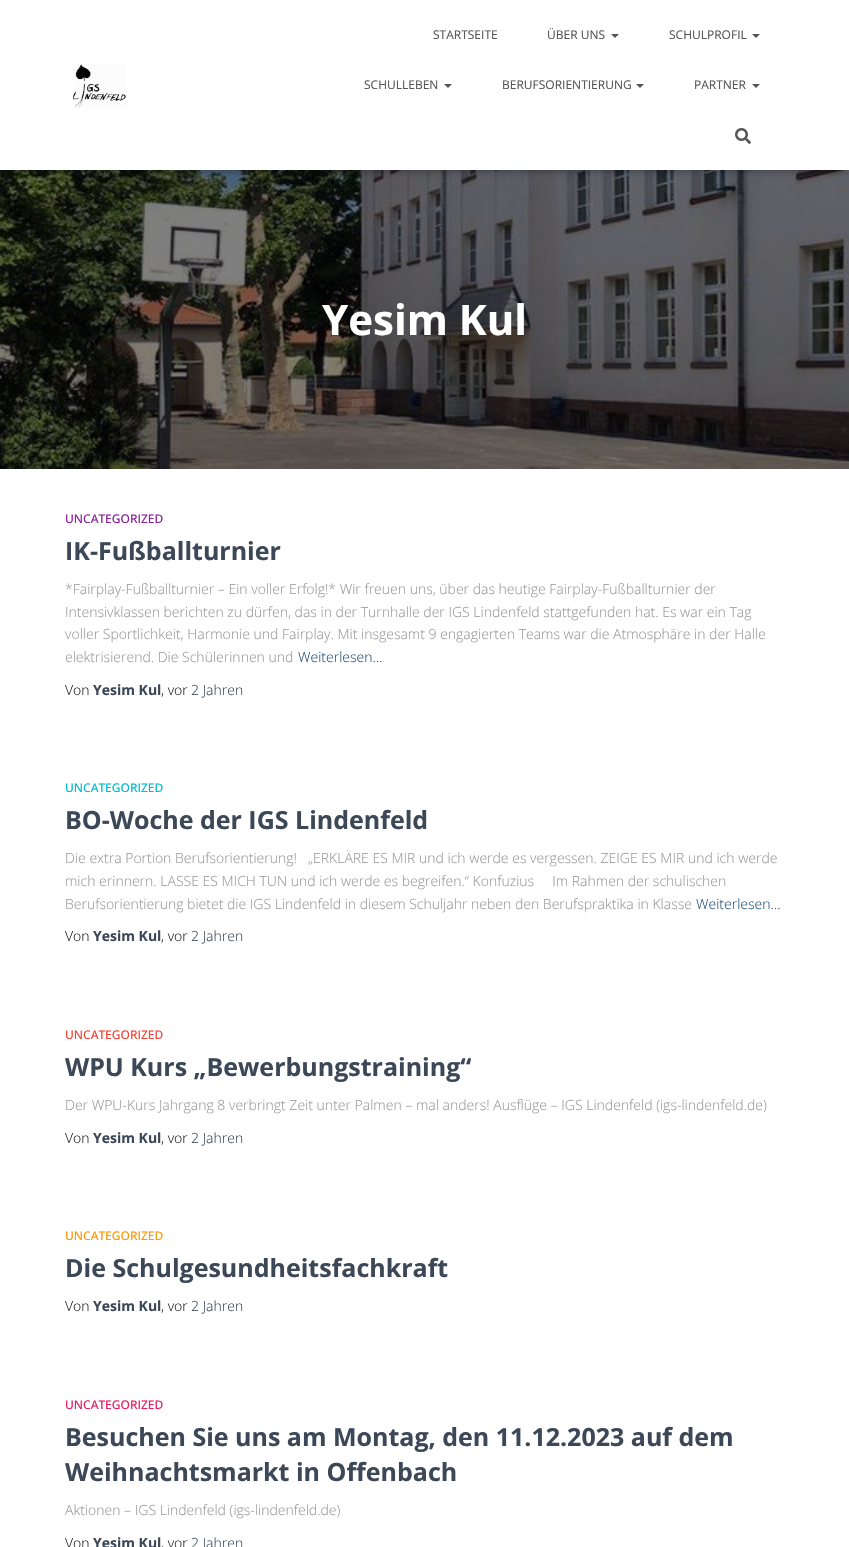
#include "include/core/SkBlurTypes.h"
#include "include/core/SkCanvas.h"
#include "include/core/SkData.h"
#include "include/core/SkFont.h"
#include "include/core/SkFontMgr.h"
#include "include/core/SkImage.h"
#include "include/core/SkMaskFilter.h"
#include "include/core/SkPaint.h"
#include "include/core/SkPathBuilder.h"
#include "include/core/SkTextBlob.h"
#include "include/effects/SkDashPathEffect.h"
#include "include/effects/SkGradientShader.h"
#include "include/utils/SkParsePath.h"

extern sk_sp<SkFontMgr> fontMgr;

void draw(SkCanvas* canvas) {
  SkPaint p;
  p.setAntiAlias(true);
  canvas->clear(SK_ColorWHITE);
  canvas->drawImageRect(SkImages::DeferredFromEncodedData(SkData::MakeFromFileName("images/3.png")), SkRect::MakeLTRB(0, 170, 849, 469), SkSamplingOptions());
  p.setColor(SkColorSetARGB(26, 0, 0, 0));
  p.setMaskFilter(SkMaskFilter::MakeBlur(kNormal_SkBlurStyle, 2.5f));
  canvas->drawRect(SkRect::MakeLTRB(2, 6, 847, 172), p);
  p.setMaskFilter(nullptr);
  p.setColor(SkColorSetARGB(31, 0, 0, 0));
  p.setMaskFilter(SkMaskFilter::MakeBlur(kNormal_SkBlurStyle, 5));
  canvas->drawRect(SkRect::MakeLTRB(0, 1, 849, 171), p);
  p.setMaskFilter(nullptr);
  p.setColor(SkColorSetARGB(107, 0, 0, 0));
  p.setMaskFilter(SkMaskFilter::MakeBlur(kNormal_SkBlurStyle, 5));
  canvas->drawRect(SkRect::MakeLTRB(6, 7, 843, 165), p);
  p.setMaskFilter(nullptr);
  p.setColor(SK_ColorWHITE);
  canvas->drawRect(SkRect::MakeLTRB(0, 0, 849, 170), p);
  canvas->drawImageRect(SkImages::DeferredFromEncodedData(SkData::MakeFromFileName("images/1.png")), SkRect::MakeLTRB(73, 64, 126, 108), SkSamplingOptions());
  p.setColor(SkColorSetRGB(85, 85, 85));
  canvas->drawPath(SkPathBuilder().moveTo(611, 34).lineTo(619, 34).lineTo(615, 38).close().detach(), p);
  canvas->drawPath(SkPathBuilder().moveTo(752, 34).lineTo(760, 34).lineTo(756, 38).close().detach(), p);
  canvas->drawPath(SkPathBuilder().moveTo(444, 84).lineTo(452, 84).lineTo(448, 88).close().detach(), p);
  canvas->drawPath(SkPathBuilder().moveTo(636, 84).lineTo(644, 84).lineTo(640, 88).close().detach(), p);
  canvas->drawPath(SkPathBuilder().moveTo(752, 84).lineTo(760, 84).lineTo(756, 88).close().detach(), p);
  canvas->drawImageRect(SkImages::DeferredFromEncodedData(SkData::MakeFromFileName("images/2.png")), SkRect::MakeLTRB(735, 128, 751, 144), SkSamplingOptions());
  SkFont font1(fontMgr->matchFamilyStyle("Open Sans", SkFontStyle::Normal()), 12);
  font1.setSubpixel(true);
  canvas->drawString("STARTSEITE", 433, 39, font1, p);
  canvas->drawString("ÜBER UNS", 547, 39, font1, p);
  canvas->drawString("SCHULPROFIL", 669, 39, font1, p);
  canvas->drawString("SCHULLEBEN", 364, 89, font1, p);
  canvas->drawString("BERUFSORIENTIERUNG", 502, 89, font1, p);
  canvas->drawString("PARTNER", 694, 89, font1, p);
  SkFont font2(fontMgr->matchFamilyStyle("Open Sans", SkFontStyle::Bold()), 42);
  font2.setSubpixel(true);
  p.setColor(SK_ColorWHITE);
  canvas->drawString("Yesim Kul", 322, 335, font2, p);
  SkFont font3(fontMgr->matchFamilyStyle("Open Sans", SkFontStyle(500, SkFontStyle::kNormal_Width, SkFontStyle::kUpright_Slant)), 12);
  font3.setSubpixel(true);
  p.setColor(SkColorSetRGB(137, 34, 155));
  canvas->drawString("UNCATEGORIZED", 65, 523, font3, p);
  SkFont font4(fontMgr->matchFamilyStyle("Open Sans", SkFontStyle::Bold()), 25);
  font4.setSubpixel(true);
  p.setColor(SkColorSetRGB(60, 72, 88));
  canvas->drawString("IK-Fußballturnier", 65, 560, font4, p);
  SkFont font5(fontMgr->matchFamilyStyle("Open Sans", SkFontStyle(300, SkFontStyle::kNormal_Width, SkFontStyle::kUpright_Slant)), 14);
  font5.setSubpixel(true);
  p.setColor(SkColorSetRGB(153, 153, 153));
  canvas->drawString("*Fairplay-Fußballturnier – Ein voller Erfolg!* Wir freuen uns, über das heutige Fairplay-Fußballturnier der", 65, 594, font5, p);
  canvas->drawString("Intensivklassen berichten zu dürfen, das in der Turnhalle der IGS Lindenfeld stattgefunden hat. Es war ein Tag", 65, 617, font5, p);
  canvas->drawString("voller Sportlichkeit, Harmonie und Fairplay. Mit insgesamt 9 engagierten Teams war die Atmosphäre in der Halle", 65, 639, font5, p);
  canvas->drawString("elektrisierend. Die Schülerinnen und", 65, 662, font5, p);
  p.setColor(SkColorSetRGB(35, 82, 124));
  canvas->drawString("Weiterlesen…", 298, 662, font5, p);
  p.setColor(SkColorSetRGB(33, 33, 33));
  canvas->drawString("Von", 65, 695, font5, p);
  SkFont font6(fontMgr->matchFamilyStyle("Open Sans", SkFontStyle::Bold()), 14);
  font6.setSubpixel(true);
  p.setColor(SkColorSetRGB(60, 72, 88));
  canvas->drawString("Yesim Kul", 93, 695, font6, p);
  p.setColor(SkColorSetRGB(33, 33, 33));
  canvas->drawString(", vor", 161, 695, font5, p);
  p.setColor(SkColorSetRGB(60, 72, 88));
  canvas->drawString("2 Jahren", 191, 695, font5, p);
  p.setColor(SkColorSetRGB(0, 188, 212));
  canvas->drawString("UNCATEGORIZED", 65, 792, font3, p);
  p.setColor(SkColorSetRGB(60, 72, 88));
  canvas->drawString("BO-Woche der IGS Lindenfeld", 65, 829, font4, p);
  p.setColor(SkColorSetRGB(153, 153, 153));
  canvas->drawString("Die extra Portion Berufsorientierung!   „ERKLÄRE ES MIR und ich werde es vergessen. ZEIGE ES MIR und ich werde", 65, 863, font5, p);
  canvas->drawString("mich erinnern. LASSE ES MICH TUN und ich werde es begreifen.“ Konfuzius     Im Rahmen der schulischen", 65, 886, font5, p);
  canvas->drawString("Berufsorientierung bietet die IGS Lindenfeld in diesem Schuljahr neben den Berufspraktika in Klasse", 65, 909, font5, p);
  p.setColor(SkColorSetRGB(35, 82, 124));
  canvas->drawString("Weiterlesen…", 696, 909, font5, p);
  p.setColor(SkColorSetRGB(33, 33, 33));
  canvas->drawString("Von", 65, 941, font5, p);
  p.setColor(SkColorSetRGB(60, 72, 88));
  canvas->drawString("Yesim Kul", 93, 941, font6, p);
  p.setColor(SkColorSetRGB(33, 33, 33));
  canvas->drawString(", vor", 161, 941, font5, p);
  p.setColor(SkColorSetRGB(60, 72, 88));
  canvas->drawString("2 Jahren", 191, 941, font5, p);
  p.setColor(SkColorSetRGB(244, 67, 54));
  canvas->drawString("UNCATEGORIZED", 65, 1039, font3, p);
  p.setColor(SkColorSetRGB(60, 72, 88));
  canvas->drawString("WPU Kurs „Bewerbungstraining“", 65, 1076, font4, p);
  p.setColor(SkColorSetRGB(153, 153, 153));
  canvas->drawString("Der WPU-Kurs Jahrgang 8 verbringt Zeit unter Palmen – mal anders! Ausflüge – IGS Lindenfeld (igs-lindenfeld.de)", 65, 1110, font5, p);
  p.setColor(SkColorSetRGB(33, 33, 33));
  canvas->drawString("Von", 65, 1143, font5, p);
  p.setColor(SkColorSetRGB(60, 72, 88));
  canvas->drawString("Yesim Kul", 93, 1143, font6, p);
  p.setColor(SkColorSetRGB(33, 33, 33));
  canvas->drawString(", vor", 161, 1143, font5, p);
  p.setColor(SkColorSetRGB(60, 72, 88));
  canvas->drawString("2 Jahren", 191, 1143, font5, p);
  p.setColor(SkColorSetRGB(255, 152, 0));
  canvas->drawString("UNCATEGORIZED", 65, 1240, font3, p);
  p.setColor(SkColorSetRGB(60, 72, 88));
  canvas->drawString("Die Schulgesundheitsfachkraft", 65, 1277, font4, p);
  p.setColor(SkColorSetRGB(33, 33, 33));
  canvas->drawString("Von", 65, 1311, font5, p);
  p.setColor(SkColorSetRGB(60, 72, 88));
  canvas->drawString("Yesim Kul", 93, 1311, font6, p);
  p.setColor(SkColorSetRGB(33, 33, 33));
  canvas->drawString(", vor", 161, 1311, font5, p);
  p.setColor(SkColorSetRGB(60, 72, 88));
  canvas->drawString("2 Jahren", 191, 1311, font5, p);
  p.setColor(SkColorSetRGB(233, 30, 99));
  canvas->drawString("UNCATEGORIZED", 65, 1409, font3, p);
  p.setColor(SkColorSetRGB(60, 72, 88));
  canvas->drawString("Besuchen Sie uns am Montag, den 11.12.2023 auf dem", 65, 1446, font4, p);
  canvas->drawString("Weihnachtsmarkt in Offenbach", 65, 1481, font4, p);
  p.setColor(SkColorSetRGB(153, 153, 153));
  canvas->drawString("Aktionen – IGS Lindenfeld (igs-lindenfeld.de)", 65, 1515, font5, p);
  p.setColor(SkColorSetRGB(33, 33, 33));
  canvas->drawString("Von", 65, 1548, font5, p);
  p.setColor(SkColorSetRGB(60, 72, 88));
  canvas->drawString("Yesim Kul", 93, 1548, font6, p);
  p.setColor(SkColorSetRGB(33, 33, 33));
  canvas->drawString(", vor", 161, 1548, font5, p);
  p.setColor(SkColorSetRGB(60, 72, 88));
  canvas->drawString("2 Jahren", 191, 1548, font5, p);
}
